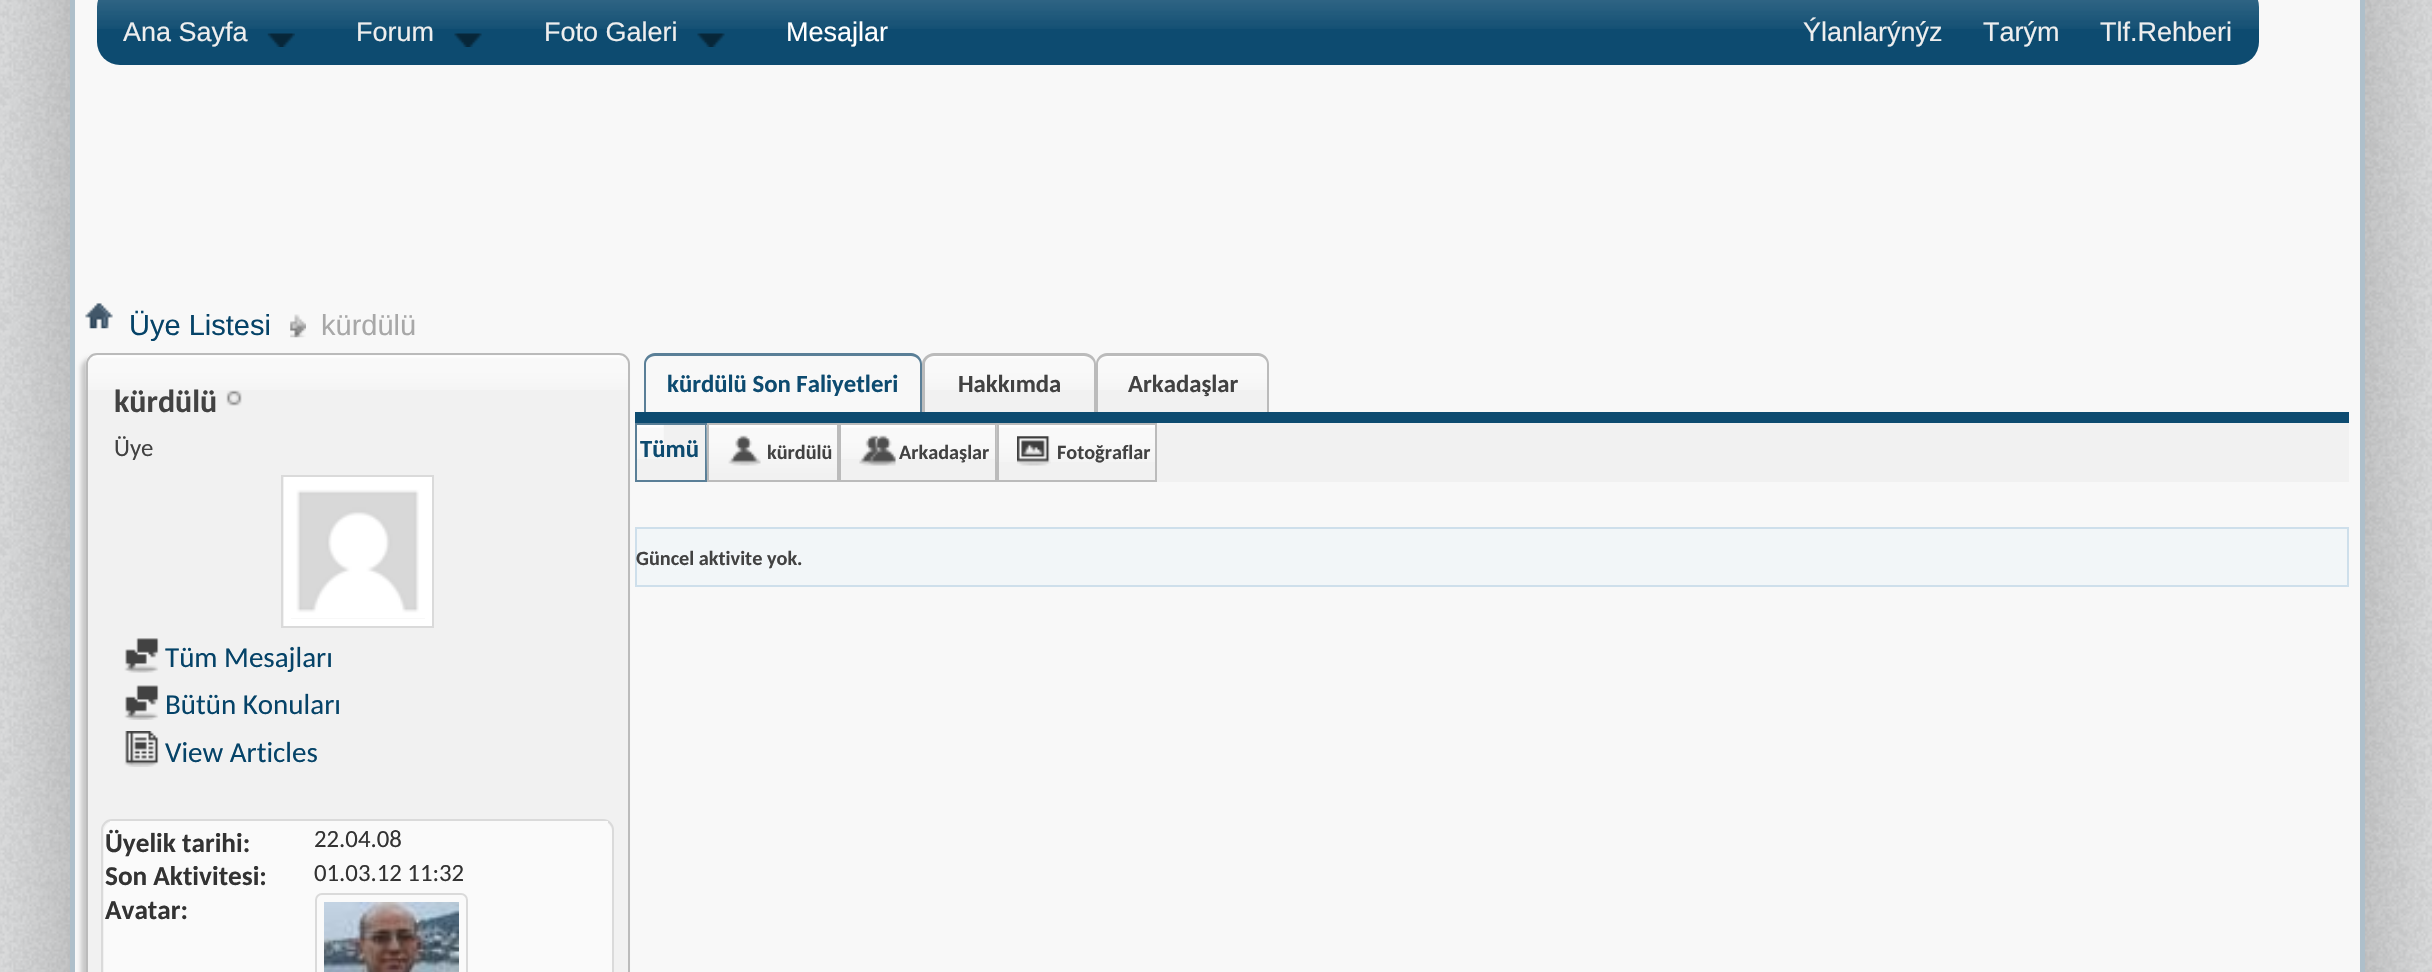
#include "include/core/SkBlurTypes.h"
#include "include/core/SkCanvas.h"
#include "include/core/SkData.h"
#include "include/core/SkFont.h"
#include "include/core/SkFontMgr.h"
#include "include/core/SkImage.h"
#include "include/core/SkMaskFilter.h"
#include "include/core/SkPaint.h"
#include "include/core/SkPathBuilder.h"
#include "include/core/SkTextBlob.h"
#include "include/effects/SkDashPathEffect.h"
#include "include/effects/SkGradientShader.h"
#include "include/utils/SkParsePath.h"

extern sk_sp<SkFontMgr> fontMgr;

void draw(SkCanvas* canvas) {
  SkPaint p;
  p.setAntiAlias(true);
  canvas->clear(SK_ColorWHITE);
  canvas->drawImageRect(SkImages::DeferredFromEncodedData(SkData::MakeFromFileName("images/1.png")), SkRect::MakeLTRB(0, 0, 2432, 972), SkSamplingOptions());
  p.setColor(SkColorSetARGB(77, 0, 0, 0));
  p.setMaskFilter(SkMaskFilter::MakeBlur(kNormal_SkBlurStyle, 79));
  canvas->drawRoundRect(SkRect::MakeLTRB(70, -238, 2365, 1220), 11, 11, p);
  p.setMaskFilter(nullptr);
  p.setColor(SkColorSetRGB(248, 248, 248));
  canvas->drawRect(SkRect::MakeLTRB(72.5f, -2.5f, 2362.5f, 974.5f), p);
  p.setStyle(SkPaint::kStroke_Style);
  p.setStrokeWidth(5);
  p.setColor(SkColorSetRGB(174, 191, 202));
  canvas->drawRect(SkRect::MakeLTRB(72.5f, -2.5f, 2362.5f, 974.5f), p);
  p.setStyle(SkPaint::kFill_Style);
  p.setColor(SkColorSetRGB(13, 75, 112));
  canvas->drawRoundRect(SkRect::MakeLTRB(97, -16, 2259, 65), 23, 23, p);
  canvas->drawImageRect(SkImages::DeferredFromEncodedData(SkData::MakeFromFileName("images/2.png")), SkRect::MakeLTRB(97, 0, 2259, 29), SkSamplingOptions());
  canvas->drawImageRect(SkImages::DeferredFromEncodedData(SkData::MakeFromFileName("images/3.png")), SkRect::MakeLTRB(267, 33, 295, 47), SkSamplingOptions());
  canvas->drawImageRect(SkImages::DeferredFromEncodedData(SkData::MakeFromFileName("images/4.png")), SkRect::MakeLTRB(454, 33, 482, 47), SkSamplingOptions());
  canvas->drawImageRect(SkImages::DeferredFromEncodedData(SkData::MakeFromFileName("images/4.png")), SkRect::MakeLTRB(697, 33, 725, 47), SkSamplingOptions());
  canvas->drawImageRect(SkImages::DeferredFromEncodedData(SkData::MakeFromFileName("images/5.png")), SkRect::MakeLTRB(85, 303, 113, 329), SkSamplingOptions());
  canvas->drawImageRect(SkImages::DeferredFromEncodedData(SkData::MakeFromFileName("images/6.png")), SkRect::MakeLTRB(290, 314, 306, 338), SkSamplingOptions());
  p.setColor(SkColorSetRGB(200, 200, 200));
  p.setMaskFilter(SkMaskFilter::MakeBlur(kNormal_SkBlurStyle, 2));
  canvas->drawRoundRect(SkRect::MakeLTRB(81, 358, 626, 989), 11, 11, p);
  p.setMaskFilter(nullptr);
  p.setColor(SkColorSetRGB(241, 241, 241));
  canvas->drawRoundRect(SkRect::MakeLTRB(86, 353, 630, 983), 11, 11, p);
  canvas->drawImageRect(SkImages::DeferredFromEncodedData(SkData::MakeFromFileName("images/7.png")), SkRect::MakeLTRB(85, 355, 630, 390), SkSamplingOptions());
  p.setStyle(SkPaint::kStroke_Style);
  p.setStrokeWidth(2);
  p.setColor(SkColorSetRGB(187, 187, 187));
  canvas->drawRoundRect(SkRect::MakeLTRB(87, 354, 629, 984), 10, 10, p);
  canvas->drawImageRect(SkImages::DeferredFromEncodedData(SkData::MakeFromFileName("images/8.png")), SkRect::MakeLTRB(88, 362, 89, 364), SkSamplingOptions());
  canvas->drawImageRect(SkImages::DeferredFromEncodedData(SkData::MakeFromFileName("images/9.png")), SkRect::MakeLTRB(226, 390, 242, 406), SkSamplingOptions());
  p.setStrokeWidth(7);
  p.setColor(SK_ColorWHITE);
  canvas->drawRect(SkRect::MakeLTRB(287.5f, 480.5f, 428.5f, 622.5f), p);
  canvas->drawImageRect(SkImages::DeferredFromEncodedData(SkData::MakeFromFileName("images/10.png")), SkRect::MakeLTRB(291, 484, 425, 619), SkSamplingOptions());
  p.setStrokeWidth(2);
  p.setColor(SkColorSetRGB(218, 218, 218));
  canvas->drawRect(SkRect::MakeLTRB(282, 476, 433, 627), p);
  canvas->drawImageRect(SkImages::DeferredFromEncodedData(SkData::MakeFromFileName("images/11.png")), SkRect::MakeLTRB(124, 638, 159, 673), SkSamplingOptions());
  canvas->drawImageRect(SkImages::DeferredFromEncodedData(SkData::MakeFromFileName("images/12.png")), SkRect::MakeLTRB(124, 685, 159, 720), SkSamplingOptions());
  canvas->drawImageRect(SkImages::DeferredFromEncodedData(SkData::MakeFromFileName("images/13.png")), SkRect::MakeLTRB(124, 731, 159, 767), SkSamplingOptions());
  canvas->drawRoundRect(SkRect::MakeLTRB(102, 820, 613, 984), 10, 10, p);
  p.setStyle(SkPaint::kFill_Style);
  p.setColor(SkColorSetRGB(250, 250, 250));
  canvas->drawRoundRect(SkRect::MakeLTRB(104, 821, 612, 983), 11, 11, p);
  canvas->drawRect(SkRect::MakeLTRB(110, 821, 608, 823), p);
  p.setStyle(SkPaint::kStroke_Style);
  p.setColor(SkColorSetRGB(218, 218, 218));
  canvas->drawRoundRect(SkRect::MakeLTRB(316, 894, 467, 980), 6, 6, p);
  canvas->drawImageRect(SkImages::DeferredFromEncodedData(SkData::MakeFromFileName("images/14.png")), SkRect::MakeLTRB(324, 902, 459, 972), SkSamplingOptions());
  p.setStyle(SkPaint::kFill_Style);
  p.setColor(SkColorSetRGB(90, 127, 151));
  canvas->drawPath(SkPathBuilder(SkPathFillType::kEvenOdd).moveTo(655, 353).lineTo(911, 353).cubicTo(917, 353, 922, 358, 922, 364).lineTo(922, 412).lineTo(644, 412).lineTo(644, 364).cubicTo(644, 358, 649, 353, 655, 353).close().moveTo(655, 356).lineTo(911, 356).cubicTo(916, 356, 920, 360, 920, 364).lineTo(920, 412).lineTo(646, 412).lineTo(646, 364).cubicTo(646, 360, 650, 356, 655, 356).close().detach(), p);
  p.setColor(SkColorSetRGB(241, 241, 241));
  canvas->drawPath(SkPathBuilder().moveTo(934, 356).lineTo(1085, 356).cubicTo(1090, 356, 1094, 360, 1094, 365).lineTo(1094, 412).lineTo(925, 412).lineTo(925, 365).cubicTo(925, 360, 929, 356, 934, 356).close().detach(), p);
  canvas->drawImageRect(SkImages::DeferredFromEncodedData(SkData::MakeFromFileName("images/15.png")), SkRect::MakeLTRB(923, 355, 1095, 390), SkSamplingOptions());
  p.setColor(SkColorSetRGB(187, 187, 187));
  canvas->drawPath(SkPathBuilder(SkPathFillType::kEvenOdd).moveTo(934, 353).lineTo(1084, 353).cubicTo(1091, 353, 1096, 358, 1096, 364).lineTo(1096, 412).lineTo(922, 412).lineTo(922, 364).cubicTo(922, 358, 928, 353, 934, 353).close().moveTo(934, 356).lineTo(1084, 356).cubicTo(1089, 356, 1094, 360, 1094, 364).lineTo(1094, 412).lineTo(925, 412).lineTo(925, 364).cubicTo(925, 360, 929, 356, 934, 356).close().detach(), p);
  p.setColor(SkColorSetRGB(241, 241, 241));
  canvas->drawPath(SkPathBuilder().moveTo(1107, 356).lineTo(1258, 356).cubicTo(1263, 356, 1267, 360, 1267, 365).lineTo(1267, 412).lineTo(1098, 412).lineTo(1098, 365).cubicTo(1098, 360, 1102, 356, 1107, 356).close().detach(), p);
  canvas->drawImageRect(SkImages::DeferredFromEncodedData(SkData::MakeFromFileName("images/16.png")), SkRect::MakeLTRB(1096, 355, 1269, 390), SkSamplingOptions());
  p.setColor(SkColorSetRGB(187, 187, 187));
  canvas->drawPath(SkPathBuilder(SkPathFillType::kEvenOdd).moveTo(1107, 353).lineTo(1258, 353).cubicTo(1264, 353, 1269, 358, 1269, 364).lineTo(1269, 412).lineTo(1096, 412).lineTo(1096, 364).cubicTo(1096, 358, 1101, 353, 1107, 353).close().moveTo(1107, 356).lineTo(1258, 356).cubicTo(1263, 356, 1267, 360, 1267, 364).lineTo(1267, 412).lineTo(1098, 412).lineTo(1098, 364).cubicTo(1098, 360, 1102, 356, 1107, 356).close().detach(), p);
  p.setColor(SkColorSetRGB(13, 75, 112));
  canvas->drawRect(SkRect::MakeLTRB(635, 412, 2349, 423), p);
  p.setColor(SkColorSetRGB(241, 241, 241));
  canvas->drawRect(SkRect::MakeLTRB(637, 423, 2349, 482), p);
  canvas->drawImageRect(SkImages::DeferredFromEncodedData(SkData::MakeFromFileName("images/17.png")), SkRect::MakeLTRB(637, 425, 664, 459), SkSamplingOptions());
  p.setStyle(SkPaint::kStroke_Style);
  p.setColor(SkColorSetRGB(90, 127, 151));
  canvas->drawRect(SkRect::MakeLTRB(636, 424, 706, 481), p);
  canvas->drawImageRect(SkImages::DeferredFromEncodedData(SkData::MakeFromFileName("images/18.png")), SkRect::MakeLTRB(706, 425, 837, 474), SkSamplingOptions());
  p.setColor(SkColorSetRGB(187, 187, 187));
  canvas->drawRect(SkRect::MakeLTRB(708, 424, 838, 481), p);
  canvas->drawImageRect(SkImages::DeferredFromEncodedData(SkData::MakeFromFileName("images/19.png")), SkRect::MakeLTRB(728, 435, 761, 466), SkSamplingOptions());
  canvas->drawImageRect(SkImages::DeferredFromEncodedData(SkData::MakeFromFileName("images/20.png")), SkRect::MakeLTRB(841, 425, 995, 459), SkSamplingOptions());
  canvas->drawRect(SkRect::MakeLTRB(840, 424, 996, 481), p);
  canvas->drawImageRect(SkImages::DeferredFromEncodedData(SkData::MakeFromFileName("images/21.png")), SkRect::MakeLTRB(859, 435, 896, 466), SkSamplingOptions());
  canvas->drawImageRect(SkImages::DeferredFromEncodedData(SkData::MakeFromFileName("images/22.png")), SkRect::MakeLTRB(996, 425, 1155, 462), SkSamplingOptions());
  canvas->drawRect(SkRect::MakeLTRB(998, 424, 1156, 481), p);
  canvas->drawImageRect(SkImages::DeferredFromEncodedData(SkData::MakeFromFileName("images/23.png")), SkRect::MakeLTRB(1017, 436, 1051, 466), SkSamplingOptions());
  p.setStyle(SkPaint::kFill_Style);
  p.setColor(SkColorSetRGB(242, 246, 248));
  canvas->drawRect(SkRect::MakeLTRB(636, 528, 2348, 586), p);
  p.setStyle(SkPaint::kStroke_Style);
  p.setColor(SkColorSetRGB(206, 223, 235));
  canvas->drawRect(SkRect::MakeLTRB(636, 528, 2348, 586), p);
  SkFont font1(fontMgr->matchFamilyStyle("Liberation Sans", SkFontStyle::Normal()), 27);
  font1.setSubpixel(true);
  p.setStyle(SkPaint::kFill_Style);
  p.setColor(SkColorSetRGB(238, 238, 238));
  canvas->drawString("Ana Sayfa", 123, 41, font1, p);
  canvas->drawString("Forum", 356, 41, font1, p);
  canvas->drawString("Foto Galeri", 544, 41, font1, p);
  p.setColor(SK_ColorWHITE);
  canvas->drawString("Mesajlar", 786, 41, font1, p);
  p.setColor(SkColorSetRGB(238, 238, 238));
  canvas->drawString("Ýlanlarýnýz", 1803, 41, font1, p);
  canvas->drawString("Tarým", 1983, 41, font1, p);
  canvas->drawString("Tlf.Rehberi", 2100, 41, font1, p);
  SkFont font2(fontMgr->matchFamilyStyle("Liberation Sans", SkFontStyle::Normal()), 29);
  font2.setSubpixel(true);
  p.setColor(SkColorSetRGB(5, 67, 104));
  canvas->drawString("Üye Listesi", 129, 335, font2, p);
  p.setColor(SkColorSetRGB(168, 168, 168));
  canvas->drawString("kürdülü", 321, 335, font2, p);
  SkFont font3(fontMgr->matchFamilyStyle("Carlito", SkFontStyle::Bold()), 32);
  font3.setSubpixel(true);
  p.setColor(SkColorSetRGB(66, 66, 66));
  canvas->drawString("kürdülü", 114, 412, font3, p);
  SkFont font4(fontMgr->matchFamilyStyle("Carlito", SkFontStyle::Normal()), 24.75f);
  font4.setSubpixel(true);
  canvas->drawString("Üye", 114, 456, font4, p);
  SkFont font5(fontMgr->matchFamilyStyle("Carlito", SkFontStyle::Normal()), 29);
  font5.setSubpixel(true);
  p.setColor(SkColorSetRGB(5, 67, 104));
  canvas->drawString("Tüm Mesajları", 165, 667, font5, p);
  canvas->drawString("Bütün Konuları", 165, 714, font5, p);
  canvas->drawString("View Articles", 165, 762, font5, p);
  SkFont font6(fontMgr->matchFamilyStyle("Carlito", SkFontStyle::Bold()), 27.25f);
  font6.setSubpixel(true);
  p.setColor(SkColorSetRGB(51, 51, 51));
  canvas->drawString("Üyelik tarihi:", 105, 852, font6, p);
  canvas->drawString("22.04.08", 314, 847, font4, p);
  canvas->drawString("Son Aktivitesi:", 105, 885, font6, p);
  canvas->drawString("01.03.12 11:32", 314, 881, font4, p);
  canvas->drawString("Avatar:", 105, 919, font6, p);
  SkFont font7(fontMgr->matchFamilyStyle("Carlito", SkFontStyle::Bold()), 24.75f);
  font7.setSubpixel(true);
  p.setColor(SkColorSetRGB(13, 75, 112));
  canvas->drawString("kürdülü Son Faliyetleri", 667, 392, font7, p);
  p.setColor(SkColorSetRGB(66, 66, 66));
  canvas->drawString("Hakkımda", 958, 392, font7, p);
  canvas->drawString("Arkadaşlar", 1128, 392, font7, p);
  p.setColor(SkColorSetRGB(13, 75, 112));
  canvas->drawString("Tümü", 640, 457, font7, p);
  SkFont font8(fontMgr->matchFamilyStyle("Carlito", SkFontStyle::Bold()), 20.25f);
  font8.setSubpixel(true);
  p.setColor(SkColorSetRGB(66, 66, 66));
  canvas->drawString("kürdülü", 767, 459, font8, p);
  canvas->drawString("Arkadaşlar", 899, 459, font8, p);
  canvas->drawString("Fotoğraflar", 1057, 459, font8, p);
  canvas->drawString("Güncel aktivite yok.", 636, 565, font8, p);
}
